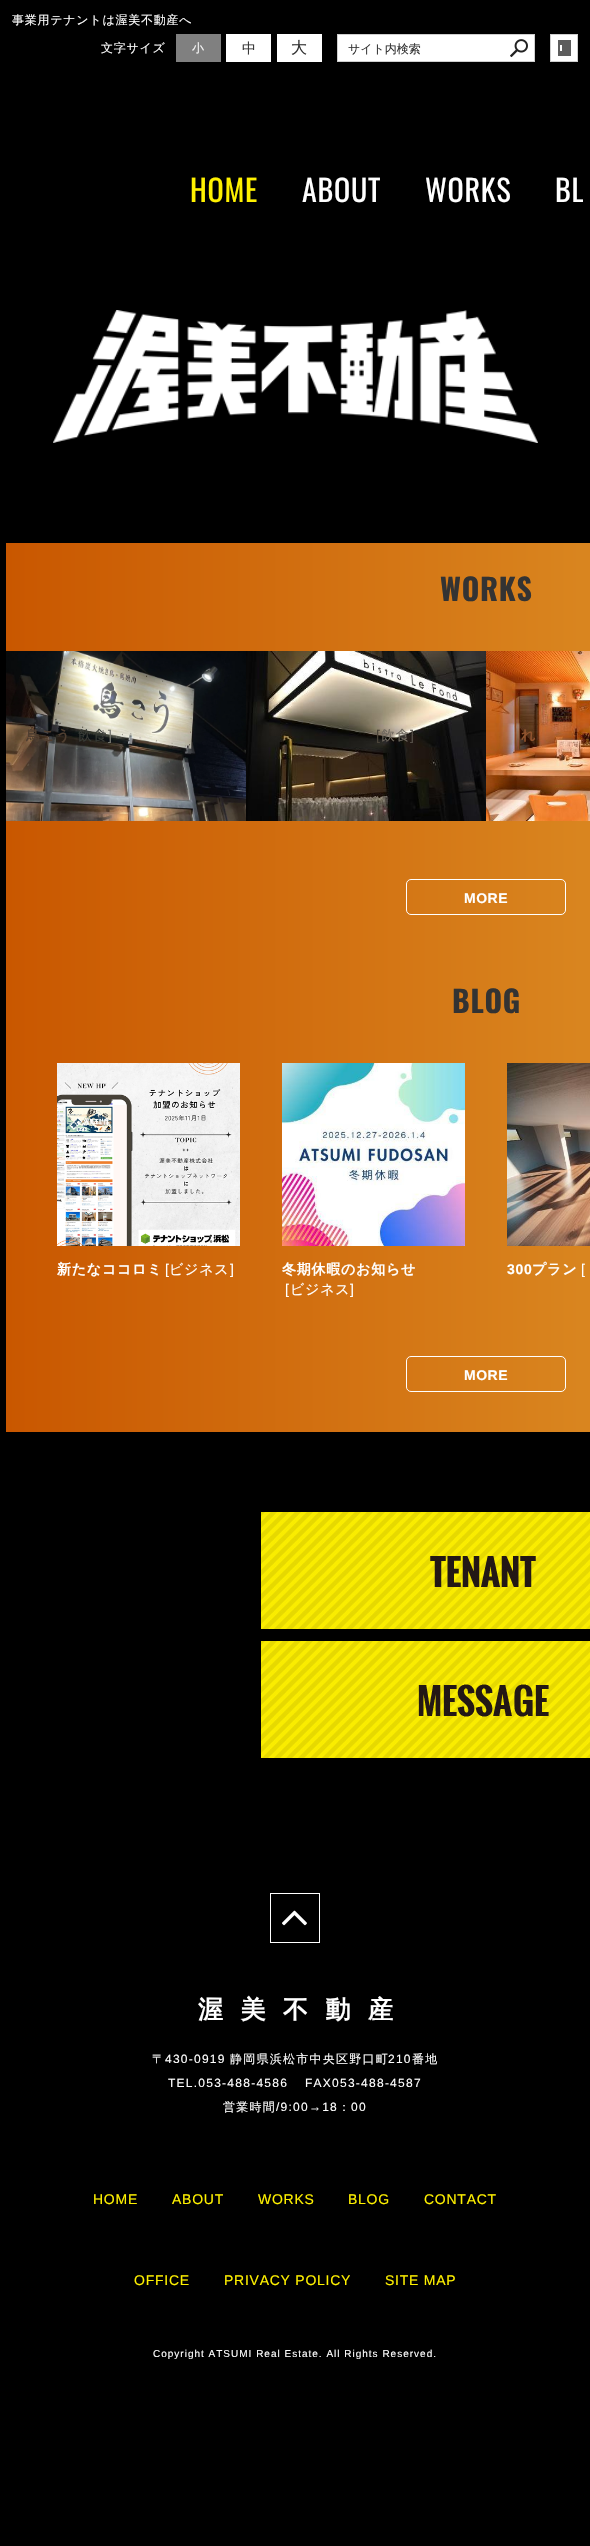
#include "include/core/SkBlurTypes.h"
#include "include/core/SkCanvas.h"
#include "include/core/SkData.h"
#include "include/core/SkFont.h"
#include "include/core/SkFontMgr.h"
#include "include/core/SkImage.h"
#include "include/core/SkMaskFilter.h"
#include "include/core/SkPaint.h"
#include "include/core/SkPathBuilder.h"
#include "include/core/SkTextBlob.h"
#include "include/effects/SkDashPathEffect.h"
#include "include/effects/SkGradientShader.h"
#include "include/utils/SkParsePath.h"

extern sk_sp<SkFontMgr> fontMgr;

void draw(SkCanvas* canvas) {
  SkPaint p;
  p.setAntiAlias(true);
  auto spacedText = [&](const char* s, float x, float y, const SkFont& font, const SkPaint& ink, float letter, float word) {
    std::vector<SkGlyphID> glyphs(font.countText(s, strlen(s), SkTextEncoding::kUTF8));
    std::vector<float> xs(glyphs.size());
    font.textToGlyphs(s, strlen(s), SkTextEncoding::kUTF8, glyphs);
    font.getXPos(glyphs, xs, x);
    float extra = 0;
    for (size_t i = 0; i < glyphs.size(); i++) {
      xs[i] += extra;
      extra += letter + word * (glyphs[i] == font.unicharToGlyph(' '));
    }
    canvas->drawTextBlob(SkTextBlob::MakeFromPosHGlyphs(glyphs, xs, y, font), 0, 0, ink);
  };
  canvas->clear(SK_ColorBLACK);
  p.setColor(SkColorSetRGB(128, 128, 128));
  canvas->drawRect(SkRect::MakeLTRB(176, 34, 221, 62), p);
  p.setColor(SK_ColorWHITE);
  canvas->drawRect(SkRect::MakeLTRB(226, 34, 271, 62), p);
  canvas->drawRect(SkRect::MakeLTRB(277, 34, 322, 62), p);
  canvas->drawRect(SkRect::MakeLTRB(337.5f, 34.5f, 534.5f, 61.5f), p);
  p.setStyle(SkPaint::kStroke_Style);
  p.setStrokeWidth(1);
  p.setColor(SkColorSetRGB(206, 206, 206));
  canvas->drawRect(SkRect::MakeLTRB(337.5f, 34.5f, 534.5f, 61.5f), p);
  canvas->drawImageRect(SkImages::DeferredFromEncodedData(SkData::MakeFromFileName("images/1.png")), SkRect::MakeLTRB(510, 39, 528, 58), SkSamplingOptions());
  p.setStyle(SkPaint::kFill_Style);
  p.setColor(SK_ColorWHITE);
  canvas->drawRect(SkRect::MakeLTRB(551, 35, 577, 61), p);
  canvas->drawImageRect(SkImages::DeferredFromEncodedData(SkData::MakeFromFileName("images/2.png")), SkRect::MakeLTRB(558, 40, 571, 56), SkSamplingOptions());
  p.setStyle(SkPaint::kStroke_Style);
  p.setColor(SkColorSetRGB(206, 206, 206));
  canvas->drawRect(SkRect::MakeLTRB(550.5f, 34.5f, 577.5f, 61.5f), p);
  canvas->drawImageRect(SkImages::DeferredFromEncodedData(SkData::MakeFromFileName("images/3.png")), SkRect::MakeLTRB(53, 310, 538, 443), SkSamplingOptions());
  p.setStyle(SkPaint::kFill_Style);
  {
    const SkColor colors[] = {SkColorSetRGB(201, 87, 0), SkColorSetRGB(217, 133, 31)};
    const float stops[] = {0, 0.6f};
    const SkPoint ends[] = {{6, 749}, {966, 749}};
    p.setShader(SkGradientShader::MakeLinear(ends, colors, stops, 2, SkTileMode::kClamp));
    p.setAlpha(255);
  }
  canvas->drawRect(SkRect::MakeLTRB(6, 543, 590, 955), p);
  canvas->drawImageRect(SkImages::DeferredFromEncodedData(SkData::MakeFromFileName("images/4.png")), SkRect::MakeLTRB(6, 651, 246, 821), SkSamplingOptions());
  canvas->drawImageRect(SkImages::DeferredFromEncodedData(SkData::MakeFromFileName("images/5.png")), SkRect::MakeLTRB(246, 651, 486, 821), SkSamplingOptions());
  canvas->drawImageRect(SkImages::DeferredFromEncodedData(SkData::MakeFromFileName("images/6.png")), SkRect::MakeLTRB(486, 651, 590, 821), SkSamplingOptions());
  p.setStyle(SkPaint::kStroke_Style);
  p.setShader(nullptr);
  p.setColor(SK_ColorWHITE);
  canvas->drawRoundRect(SkRect::MakeLTRB(406.5f, 879.5f, 565.5f, 914.5f), 4.5f, 4.5f, p);
  p.setStyle(SkPaint::kFill_Style);
  {
    const SkColor colors[] = {SkColorSetRGB(201, 87, 0), SkColorSetRGB(217, 133, 31)};
    const float stops[] = {0, 0.6f};
    const SkPoint ends[] = {{6, 1194}, {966, 1194}};
    p.setShader(SkGradientShader::MakeLinear(ends, colors, stops, 2, SkTileMode::kClamp));
    p.setAlpha(255);
  }
  canvas->drawRect(SkRect::MakeLTRB(6, 955, 590, 1432), p);
  canvas->drawImageRect(SkImages::DeferredFromEncodedData(SkData::MakeFromFileName("images/7.png")), SkRect::MakeLTRB(57, 1063, 240, 1246), SkSamplingOptions());
  canvas->drawImageRect(SkImages::DeferredFromEncodedData(SkData::MakeFromFileName("images/8.png")), SkRect::MakeLTRB(282, 1063, 465, 1246), SkSamplingOptions());
  canvas->drawImageRect(SkImages::DeferredFromEncodedData(SkData::MakeFromFileName("images/9.png")), SkRect::MakeLTRB(507, 1063, 590, 1246), SkSamplingOptions());
  p.setStyle(SkPaint::kStroke_Style);
  p.setShader(nullptr);
  p.setColor(SK_ColorWHITE);
  canvas->drawRoundRect(SkRect::MakeLTRB(406.5f, 1356.5f, 565.5f, 1391.5f), 4.5f, 4.5f, p);
  canvas->drawImageRect(SkImages::DeferredFromEncodedData(SkData::MakeFromFileName("images/10.png")), SkRect::MakeLTRB(261, 1512, 590, 1629), SkSamplingOptions());
  canvas->drawImageRect(SkImages::DeferredFromEncodedData(SkData::MakeFromFileName("images/11.png")), SkRect::MakeLTRB(261, 1641, 590, 1758), SkSamplingOptions());
  canvas->drawRect(SkRect::MakeLTRB(270.5f, 1893.5f, 319.5f, 1942.5f), p);
  canvas->drawImageRect(SkImages::DeferredFromEncodedData(SkData::MakeFromFileName("images/12.png")), SkRect::MakeLTRB(282, 1910, 307, 1926), SkSamplingOptions());
  SkFont font1(fontMgr->matchFamilyStyle("WenQuanYi Zen Hei", SkFontStyle(500, SkFontStyle::kNormal_Width, SkFontStyle::kUpright_Slant)), 12);
  font1.setSubpixel(true);
  p.setStyle(SkPaint::kFill_Style);
  spacedText("事業用テナントは渥美不動産へ", 12, 24, font1, p, 0.75f, 0);
  spacedText("文字サイズ", 101, 52, font1, p, 0.75f, 0);
  p.setColor(SkColorSetRGB(247, 247, 247));
  spacedText("小", 192, 52, font1, p, 0.5f, 0);
  SkFont font2(fontMgr->matchFamilyStyle("WenQuanYi Zen Hei", SkFontStyle(500, SkFontStyle::kNormal_Width, SkFontStyle::kUpright_Slant)), 14);
  font2.setSubpixel(true);
  p.setColor(SkColorSetRGB(51, 51, 51));
  spacedText("中", 242, 53, font2, p, 0.5f, 0);
  SkFont font3(fontMgr->matchFamilyStyle("WenQuanYi Zen Hei", SkFontStyle(500, SkFontStyle::kNormal_Width, SkFontStyle::kUpright_Slant)), 16);
  font3.setSubpixel(true);
  spacedText("大", 291, 53, font3, p, 0.5f, 0);
  canvas->drawString("サイト内検索", 348, 53, font1, p);
  SkFont font4(fontMgr->matchFamilyStyle("Oswald", SkFontStyle::Normal()), 30);
  font4.setSubpixel(true);
  p.setColor(SkColorSetRGB(255, 241, 0));
  spacedText("HOME", 190, 202, font4, p, 0.75f, 0);
  p.setColor(SK_ColorWHITE);
  spacedText("ABOUT", 302, 202, font4, p, 0.75f, 0);
  spacedText("WORKS", 425, 202, font4, p, 0.75f, 0);
  spacedText("BL", 555, 202, font4, p, 0.75f, 0);
  SkFont font5(fontMgr->matchFamilyStyle("Oswald", SkFontStyle::Bold()), 30);
  font5.setSubpixel(true);
  p.setColor(SkColorSetRGB(51, 51, 51));
  spacedText("WORKS", 440, 601, font5, p, 0.75f, 0);
  SkFont font6(fontMgr->matchFamilyStyle("WenQuanYi Zen Hei", SkFontStyle::Bold()), 14);
  font6.setSubpixel(true);
  p.setColor(SkColorSetRGB(79, 62, 48));
  spacedText("鳥こう", 26, 740, font6, p, 0.75f, 0);
  p.setColor(SkColorSetRGB(56, 59, 54));
  spacedText("飲食", 78, 740, font2, p, 0.75f, 0);
  SkFont font7(fontMgr->matchFamilyStyle("Liberation Sans", SkFontStyle::Normal()), 14);
  font7.setSubpixel(true);
  p.setColor(SkColorSetRGB(119, 119, 111));
  spacedText("]", 108, 740, font7, p, 0.75f, 0);
  p.setColor(SkColorSetRGB(74, 68, 57));
  spacedText("[", 376, 740, font7, p, 0.75f, 0);
  p.setColor(SkColorSetRGB(112, 105, 95));
  spacedText("飲食", 381, 740, font2, p, 0.75f, 0);
  p.setColor(SkColorSetRGB(84, 78, 71));
  spacedText("]", 410, 740, font7, p, 0.75f, 0);
  p.setColor(SkColorSetRGB(145, 83, 46));
  spacedText("れ", 521, 740, font6, p, 0.75f, 0);
  SkFont font8(fontMgr->matchFamilyStyle("Liberation Sans", SkFontStyle::Bold()), 14);
  font8.setSubpixel(true);
  p.setColor(SK_ColorWHITE);
  spacedText("MORE", 464, 903, font8, p, 0.5f, 0);
  p.setColor(SkColorSetRGB(51, 51, 51));
  spacedText("BLOG", 452, 1013, font5, p, 0.75f, 0);
  p.setColor(SK_ColorWHITE);
  spacedText("新たなココロミ", 57, 1274, font6, p, 0.75f, 0);
  spacedText("[", 165, 1274, font7, p, 0.75f, 0);
  spacedText("ビジネス", 169, 1274, font2, p, 0.75f, 0);
  spacedText("]", 230, 1274, font7, p, 0.75f, 0);
  spacedText("冬期休暇のお知らせ", 282, 1274, font6, p, 0.75f, 0);
  spacedText("[", 285, 1294, font7, p, 0.75f, 0);
  spacedText("ビジネス", 290, 1294, font2, p, 0.75f, 0);
  spacedText("]", 350, 1294, font7, p, 0.75f, 0);
  spacedText("300", 507, 1274, font8, p, 0.75f, 0);
  spacedText("プラン", 532, 1274, font6, p, 0.75f, 0);
  spacedText("[", 581, 1274, font7, p, 0.75f, 0);
  spacedText("MORE", 464, 1380, font8, p, 0.5f, 0);
  SkFont font9(fontMgr->matchFamilyStyle("WenQuanYi Zen Hei", SkFontStyle::Bold()), 25);
  font9.setSubpixel(true);
  spacedText("渥美不動産", 198, 2018, font9, p, 17.5f, 0);
  spacedText("〒", 152, 2063, font1, p, 1.25f, 0);
  SkFont font10(fontMgr->matchFamilyStyle("Liberation Sans", SkFontStyle::Normal()), 12);
  font10.setSubpixel(true);
  spacedText("430-0919", 165, 2063, font10, p, 1.25f, 0);
  spacedText("静岡県浜松市中央区野口町", 230, 2063, font1, p, 1.25f, 0);
  spacedText("210", 388, 2063, font10, p, 1.25f, 0);
  spacedText("番地", 412, 2063, font1, p, 1.25f, 0);
  spacedText("TEL.053-488-4586", 168, 2087, font10, p, 1.25f, 0);
  spacedText("FAX053-488-4587", 305, 2087, font10, p, 1.25f, 0);
  spacedText("営業時間", 223, 2111, font1, p, 1.25f, 0);
  spacedText("/9:00→18", 276, 2111, font10, p, 1.25f, 0);
  spacedText("：", 338, 2111, font1, p, 1.25f, 0);
  spacedText("00", 351, 2111, font10, p, 1.25f, 0);
  p.setColor(SkColorSetRGB(255, 241, 0));
  spacedText("HOME", 93, 2204, font7, p, 0.75f, 0);
  spacedText("ABOUT", 172, 2204, font7, p, 0.75f, 0);
  spacedText("WORKS", 258, 2204, font7, p, 0.75f, 0);
  spacedText("BLOG", 348, 2204, font7, p, 0.75f, 0);
  spacedText("CONTACT", 424, 2204, font7, p, 0.75f, 0);
  spacedText("OFFICE", 134, 2285, font7, p, 0.75f, 0);
  spacedText("PRIVACY POLICY", 224, 2285, font7, p, 0.75f, 0);
  spacedText("SITE MAP", 385, 2285, font7, p, 0.75f, 0);
  SkFont font11(fontMgr->matchFamilyStyle("Liberation Sans", SkFontStyle::Normal()), 10);
  font11.setSubpixel(true);
  p.setColor(SK_ColorWHITE);
  spacedText("Copyright ATSUMI Real Estate. All Rights Reserved.", 153, 2357, font11, p, 1, 0);
}
